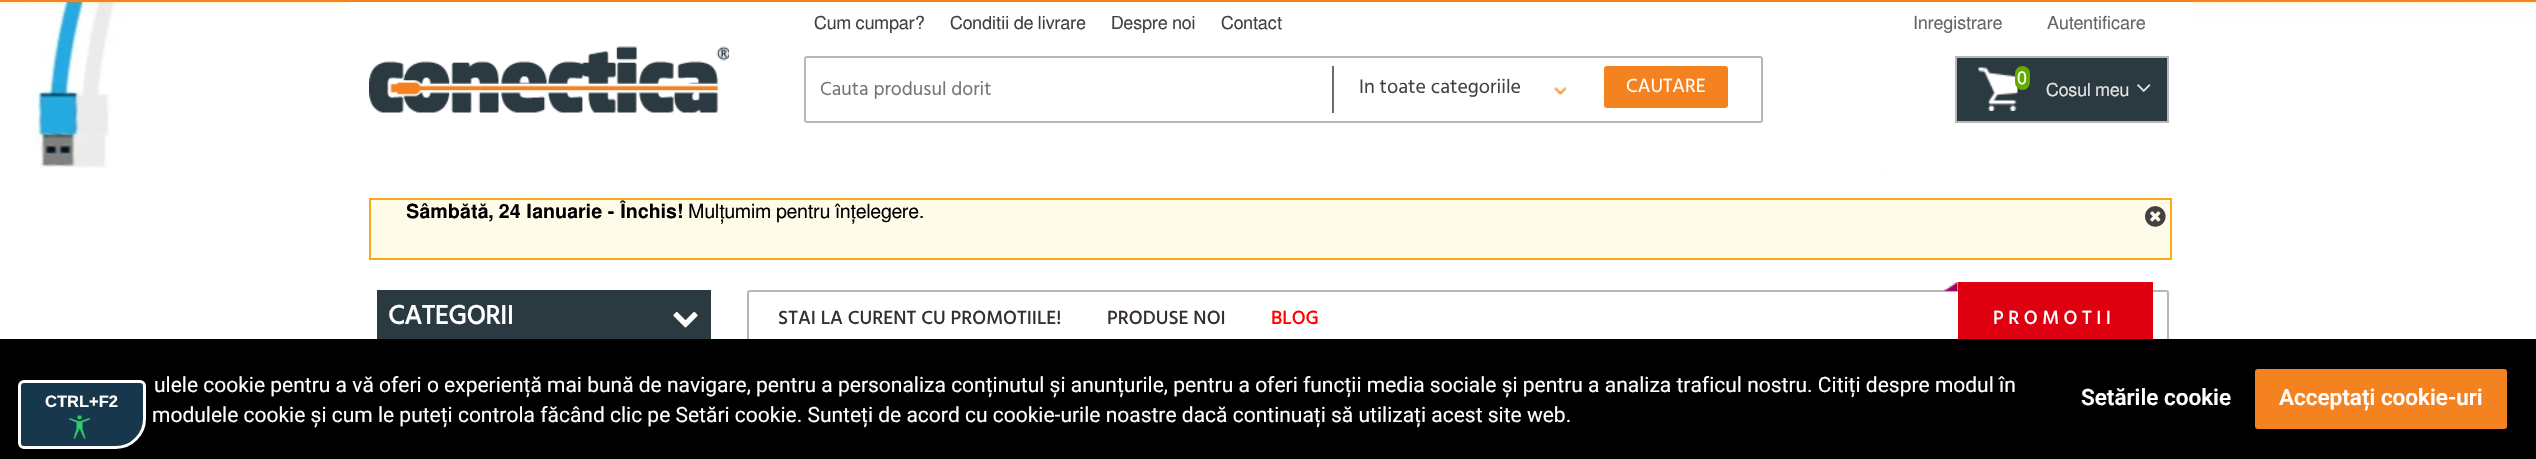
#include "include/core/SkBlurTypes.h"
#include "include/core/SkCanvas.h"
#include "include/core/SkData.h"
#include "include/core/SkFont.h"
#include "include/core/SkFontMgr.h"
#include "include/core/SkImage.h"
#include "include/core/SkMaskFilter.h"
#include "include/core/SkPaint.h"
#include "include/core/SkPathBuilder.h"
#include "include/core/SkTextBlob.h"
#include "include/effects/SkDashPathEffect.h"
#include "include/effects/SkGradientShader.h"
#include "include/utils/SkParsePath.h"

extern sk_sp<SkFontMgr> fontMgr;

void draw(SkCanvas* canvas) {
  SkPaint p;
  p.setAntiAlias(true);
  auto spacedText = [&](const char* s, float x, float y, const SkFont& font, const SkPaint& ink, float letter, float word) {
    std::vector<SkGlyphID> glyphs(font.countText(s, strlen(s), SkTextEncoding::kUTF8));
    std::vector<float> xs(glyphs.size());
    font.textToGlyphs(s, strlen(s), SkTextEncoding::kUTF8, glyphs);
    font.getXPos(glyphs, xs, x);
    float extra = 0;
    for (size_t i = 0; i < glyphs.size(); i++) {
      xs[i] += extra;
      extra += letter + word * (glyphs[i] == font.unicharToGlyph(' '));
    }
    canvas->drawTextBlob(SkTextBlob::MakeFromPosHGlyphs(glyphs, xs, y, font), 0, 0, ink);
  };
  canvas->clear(SK_ColorWHITE);
  canvas->drawImageRect(SkImages::DeferredFromEncodedData(SkData::MakeFromFileName("images/1.png")), SkRect::MakeLTRB(0, 2, 2536, 339), SkSamplingOptions());
  p.setColor(SkColorSetRGB(245, 130, 32));
  canvas->drawRect(SkRect::MakeLTRB(0, 0, 2536, 2), p);
  p.setColor(SK_ColorWHITE);
  canvas->drawRect(SkRect::MakeLTRB(347, 2, 2192, 146), p);
  canvas->drawImageRect(SkImages::DeferredFromEncodedData(SkData::MakeFromFileName("images/2.png")), SkRect::MakeLTRB(369, 46, 729, 113), SkSamplingOptions());
  p.setStyle(SkPaint::kStroke_Style);
  p.setStrokeWidth(2);
  p.setColor(SkColorSetRGB(183, 183, 183));
  canvas->drawRoundRect(SkRect::MakeLTRB(805, 57, 1762, 122), 2, 2, p);
  p.setStyle(SkPaint::kFill_Style);
  p.setColor(SkColorSetRGB(107, 107, 107));
  canvas->drawRect(SkRect::MakeLTRB(1332, 66, 1334, 113), p);
  canvas->drawImageRect(SkImages::DeferredFromEncodedData(SkData::MakeFromFileName("images/3.png")), SkRect::MakeLTRB(1554, 87, 1566, 95), SkSamplingOptions());
  p.setColor(SkColorSetRGB(245, 130, 32));
  canvas->drawRoundRect(SkRect::MakeLTRB(1604, 66, 1728, 108), 3, 3, p);
  p.setColor(SkColorSetRGB(43, 57, 65));
  canvas->drawRect(SkRect::MakeLTRB(1957, 58, 2167, 121), p);
  canvas->drawImageRect(SkImages::DeferredFromEncodedData(SkData::MakeFromFileName("images/4.png")), SkRect::MakeLTRB(1978, 67, 2018, 111), SkSamplingOptions());
  p.setStyle(SkPaint::kStroke_Style);
  p.setColor(SkColorSetRGB(183, 183, 183));
  canvas->drawRect(SkRect::MakeLTRB(1956, 57, 2168, 122), p);
  p.setStyle(SkPaint::kFill_Style);
  p.setColor(SkColorSetRGB(99, 171, 0));
  canvas->drawRoundRect(SkRect::MakeLTRB(2015, 66, 2030, 90), 7.5f, 7.5f, p);
  canvas->drawImageRect(SkImages::DeferredFromEncodedData(SkData::MakeFromFileName("images/5.png")), SkRect::MakeLTRB(2137, 84, 2151, 92), SkSamplingOptions());
  p.setColor(SK_ColorWHITE);
  canvas->drawRect(SkRect::MakeLTRB(1880, 146, 1930, 168), p);
  canvas->drawRect(SkRect::MakeLTRB(1888, 168, 1935, 198), p);
  canvas->drawRect(SkRect::MakeLTRB(1897, 198, 1964, 339), p);
  p.setColor(SkColorSetRGB(255, 251, 233));
  canvas->drawRect(SkRect::MakeLTRB(370, 199, 2171, 259), p);
  p.setStyle(SkPaint::kStroke_Style);
  p.setColor(SkColorSetRGB(249, 168, 24));
  canvas->drawRect(SkRect::MakeLTRB(370, 199, 2171, 259), p);
  canvas->drawImageRect(SkImages::DeferredFromEncodedData(SkData::MakeFromFileName("images/6.png")), SkRect::MakeLTRB(2145, 206, 2166, 227), SkSamplingOptions());
  p.setStyle(SkPaint::kFill_Style);
  p.setColor(SkColorSetRGB(43, 57, 65));
  canvas->drawRect(SkRect::MakeLTRB(377, 290, 711, 339), p);
  canvas->drawImageRect(SkImages::DeferredFromEncodedData(SkData::MakeFromFileName("images/7.png")), SkRect::MakeLTRB(673, 311, 698, 328), SkSamplingOptions());
  p.setStyle(SkPaint::kStroke_Style);
  p.setColor(SkColorSetRGB(183, 183, 183));
  canvas->drawRoundRect(SkRect::MakeLTRB(748, 291, 2168, 347), 2, 2, p);
  p.setStyle(SkPaint::kFill_Style);
  p.setColor(SkColorSetRGB(222, 0, 16));
  canvas->drawRect(SkRect::MakeLTRB(1958, 282, 2153, 339), p);
  canvas->drawImageRect(SkImages::DeferredFromEncodedData(SkData::MakeFromFileName("images/8.png")), SkRect::MakeLTRB(1944, 282, 1958, 291), SkSamplingOptions());
  p.setColor(SK_ColorBLACK);
  canvas->drawRect(SkRect::MakeLTRB(0, 339, 2536, 459), p);
  p.setColor(SkColorSetRGB(23, 56, 76));
  canvas->drawPath(SkPathBuilder().moveTo(24, 381.5f).lineTo(140, 381.5f).cubicTo(142.5f, 381.5f, 144.5f, 383.5f, 144.5f, 386).lineTo(144.5f, 419).cubicTo(144.5f, 434.5f, 131.5f, 447.5f, 116, 447.5f).lineTo(24, 447.5f).cubicTo(21.5f, 447.5f, 19.5f, 445.5f, 19.5f, 443).lineTo(19.5f, 386).cubicTo(19.5f, 383.5f, 21.5f, 381.5f, 24, 381.5f).close().detach(), p);
  p.setStyle(SkPaint::kStroke_Style);
  p.setStrokeWidth(3);
  p.setColor(SK_ColorWHITE);
  canvas->drawPath(SkPathBuilder().moveTo(24, 381.5f).lineTo(140, 381.5f).cubicTo(142.5f, 381.5f, 144.5f, 383.5f, 144.5f, 386).lineTo(144.5f, 419).cubicTo(144.5f, 434.5f, 131.5f, 447.5f, 116, 447.5f).lineTo(24, 447.5f).cubicTo(21.5f, 447.5f, 19.5f, 445.5f, 19.5f, 443).lineTo(19.5f, 386).cubicTo(19.5f, 383.5f, 21.5f, 381.5f, 24, 381.5f).close().detach(), p);
  canvas->drawImageRect(SkImages::DeferredFromEncodedData(SkData::MakeFromFileName("images/9.png")), SkRect::MakeLTRB(68, 415, 91, 439), SkSamplingOptions());
  p.setStyle(SkPaint::kFill_Style);
  p.setColor(SkColorSetRGB(245, 130, 32));
  canvas->drawRoundRect(SkRect::MakeLTRB(2255, 369, 2507, 429), 3, 3, p);
  SkFont font1(fontMgr->matchFamilyStyle("FreeSans", SkFontStyle::Normal()), 18);
  font1.setSubpixel(true);
  p.setColor(SkColorSetRGB(65, 65, 66));
  canvas->drawString("Cum cumpar?", 814, 29, font1, p);
  canvas->drawString("Conditii de livrare", 950, 29, font1, p);
  canvas->drawString("Despre noi", 1111, 29, font1, p);
  canvas->drawString("Contact", 1221, 29, font1, p);
  p.setColor(SkColorSetRGB(102, 102, 102));
  canvas->drawString("Inregistrare", 1913, 29, font1, p);
  canvas->drawString("Autentificare", 2047, 29, font1, p);
  canvas->save();
  canvas->clipRect(SkRect::MakeLTRB(821, 74, 1317, 105));
  SkFont font2(fontMgr->matchFamilyStyle("Hind", SkFontStyle::Normal()), 19.5f);
  font2.setSubpixel(true);
  p.setColor(SkColorSetRGB(117, 117, 117));
  canvas->drawString("Cauta produsul dorit", 820, 95, font2, p);
  canvas->restore();
  SkFont font3(fontMgr->matchFamilyStyle("Hind", SkFontStyle::Normal()), 20);
  font3.setSubpixel(true);
  p.setColor(SkColorSetRGB(65, 65, 66));
  canvas->drawString("In toate categoriile", 1359, 93, font3, p);
  p.setColor(SK_ColorWHITE);
  canvas->drawString("CAUTARE", 1626, 92, font2, p);
  canvas->drawString("0", 2017, 84, font1, p);
  p.setColor(SkColorSetRGB(227, 227, 227));
  canvas->drawString("Cosul meu", 2046, 96, font1, p);
  SkFont font4(fontMgr->matchFamilyStyle("FreeSans", SkFontStyle(600, SkFontStyle::kNormal_Width, SkFontStyle::kUpright_Slant)), 19.5f);
  font4.setSubpixel(true);
  p.setColor(SK_ColorBLACK);
  canvas->drawString("Sâmbătă, 24 Ianuarie - Închis!", 406, 218, font4, p);
  SkFont font5(fontMgr->matchFamilyStyle("FreeSans", SkFontStyle::Normal()), 19.5f);
  font5.setSubpixel(true);
  canvas->drawString("Mulțumim pentru înțelegere.", 688, 218, font5, p);
  SkFont font6(fontMgr->matchFamilyStyle("Hind", SkFontStyle::Bold()), 27);
  font6.setSubpixel(true);
  p.setColor(SK_ColorWHITE);
  canvas->drawString("CATEGORII", 388, 324, font6, p);
  SkFont font7(fontMgr->matchFamilyStyle("Hind", SkFontStyle(500, SkFontStyle::kNormal_Width, SkFontStyle::kUpright_Slant)), 19.5f);
  font7.setSubpixel(true);
  p.setColor(SkColorSetRGB(54, 47, 45));
  canvas->drawString("STAI LA CURENT CU PROMOTIILE!", 778, 324, font7, p);
  canvas->drawString("PRODUSE NOI", 1107, 324, font7, p);
  p.setColor(SkColorSetRGB(255, 0, 0));
  canvas->drawString("BLOG", 1271, 324, font7, p);
  p.setColor(SK_ColorWHITE);
  spacedText("PROMOTII", 1993, 324, font7, p, 4.5f, 0);
  SkFont font8(fontMgr->matchFamilyStyle("Liberation Sans", SkFontStyle::Bold()), 16.5f);
  font8.setSubpixel(true);
  canvas->drawString("CTRL+F2", 45, 407, font8, p);
  SkFont font9(fontMgr->matchFamilyStyle("Roboto", SkFontStyle::Normal()), 21);
  font9.setSubpixel(true);
  canvas->drawString("ulele cookie pentru a vă oferi o experiență mai bună de navigare, pentru a personaliza conținutul și anunțurile, pentru a oferi funcții media sociale și pentru a analiza traficul nostru. Citiți despre modul în", 154, 392, font9, p);
  canvas->drawString("modulele cookie și cum le puteți controla făcând clic pe Setări cookie. Sunteți de acord cu cookie-urile noastre dacă continuați să utilizați acest site web.", 152, 422, font9, p);
  SkFont font10(fontMgr->matchFamilyStyle("Roboto", SkFontStyle(600, SkFontStyle::kNormal_Width, SkFontStyle::kUpright_Slant)), 22.5f);
  font10.setSubpixel(true);
  canvas->drawString("Setările cookie", 2081, 405, font10, p);
  canvas->drawString("Acceptați cookie-uri", 2279, 405, font10, p);
}
